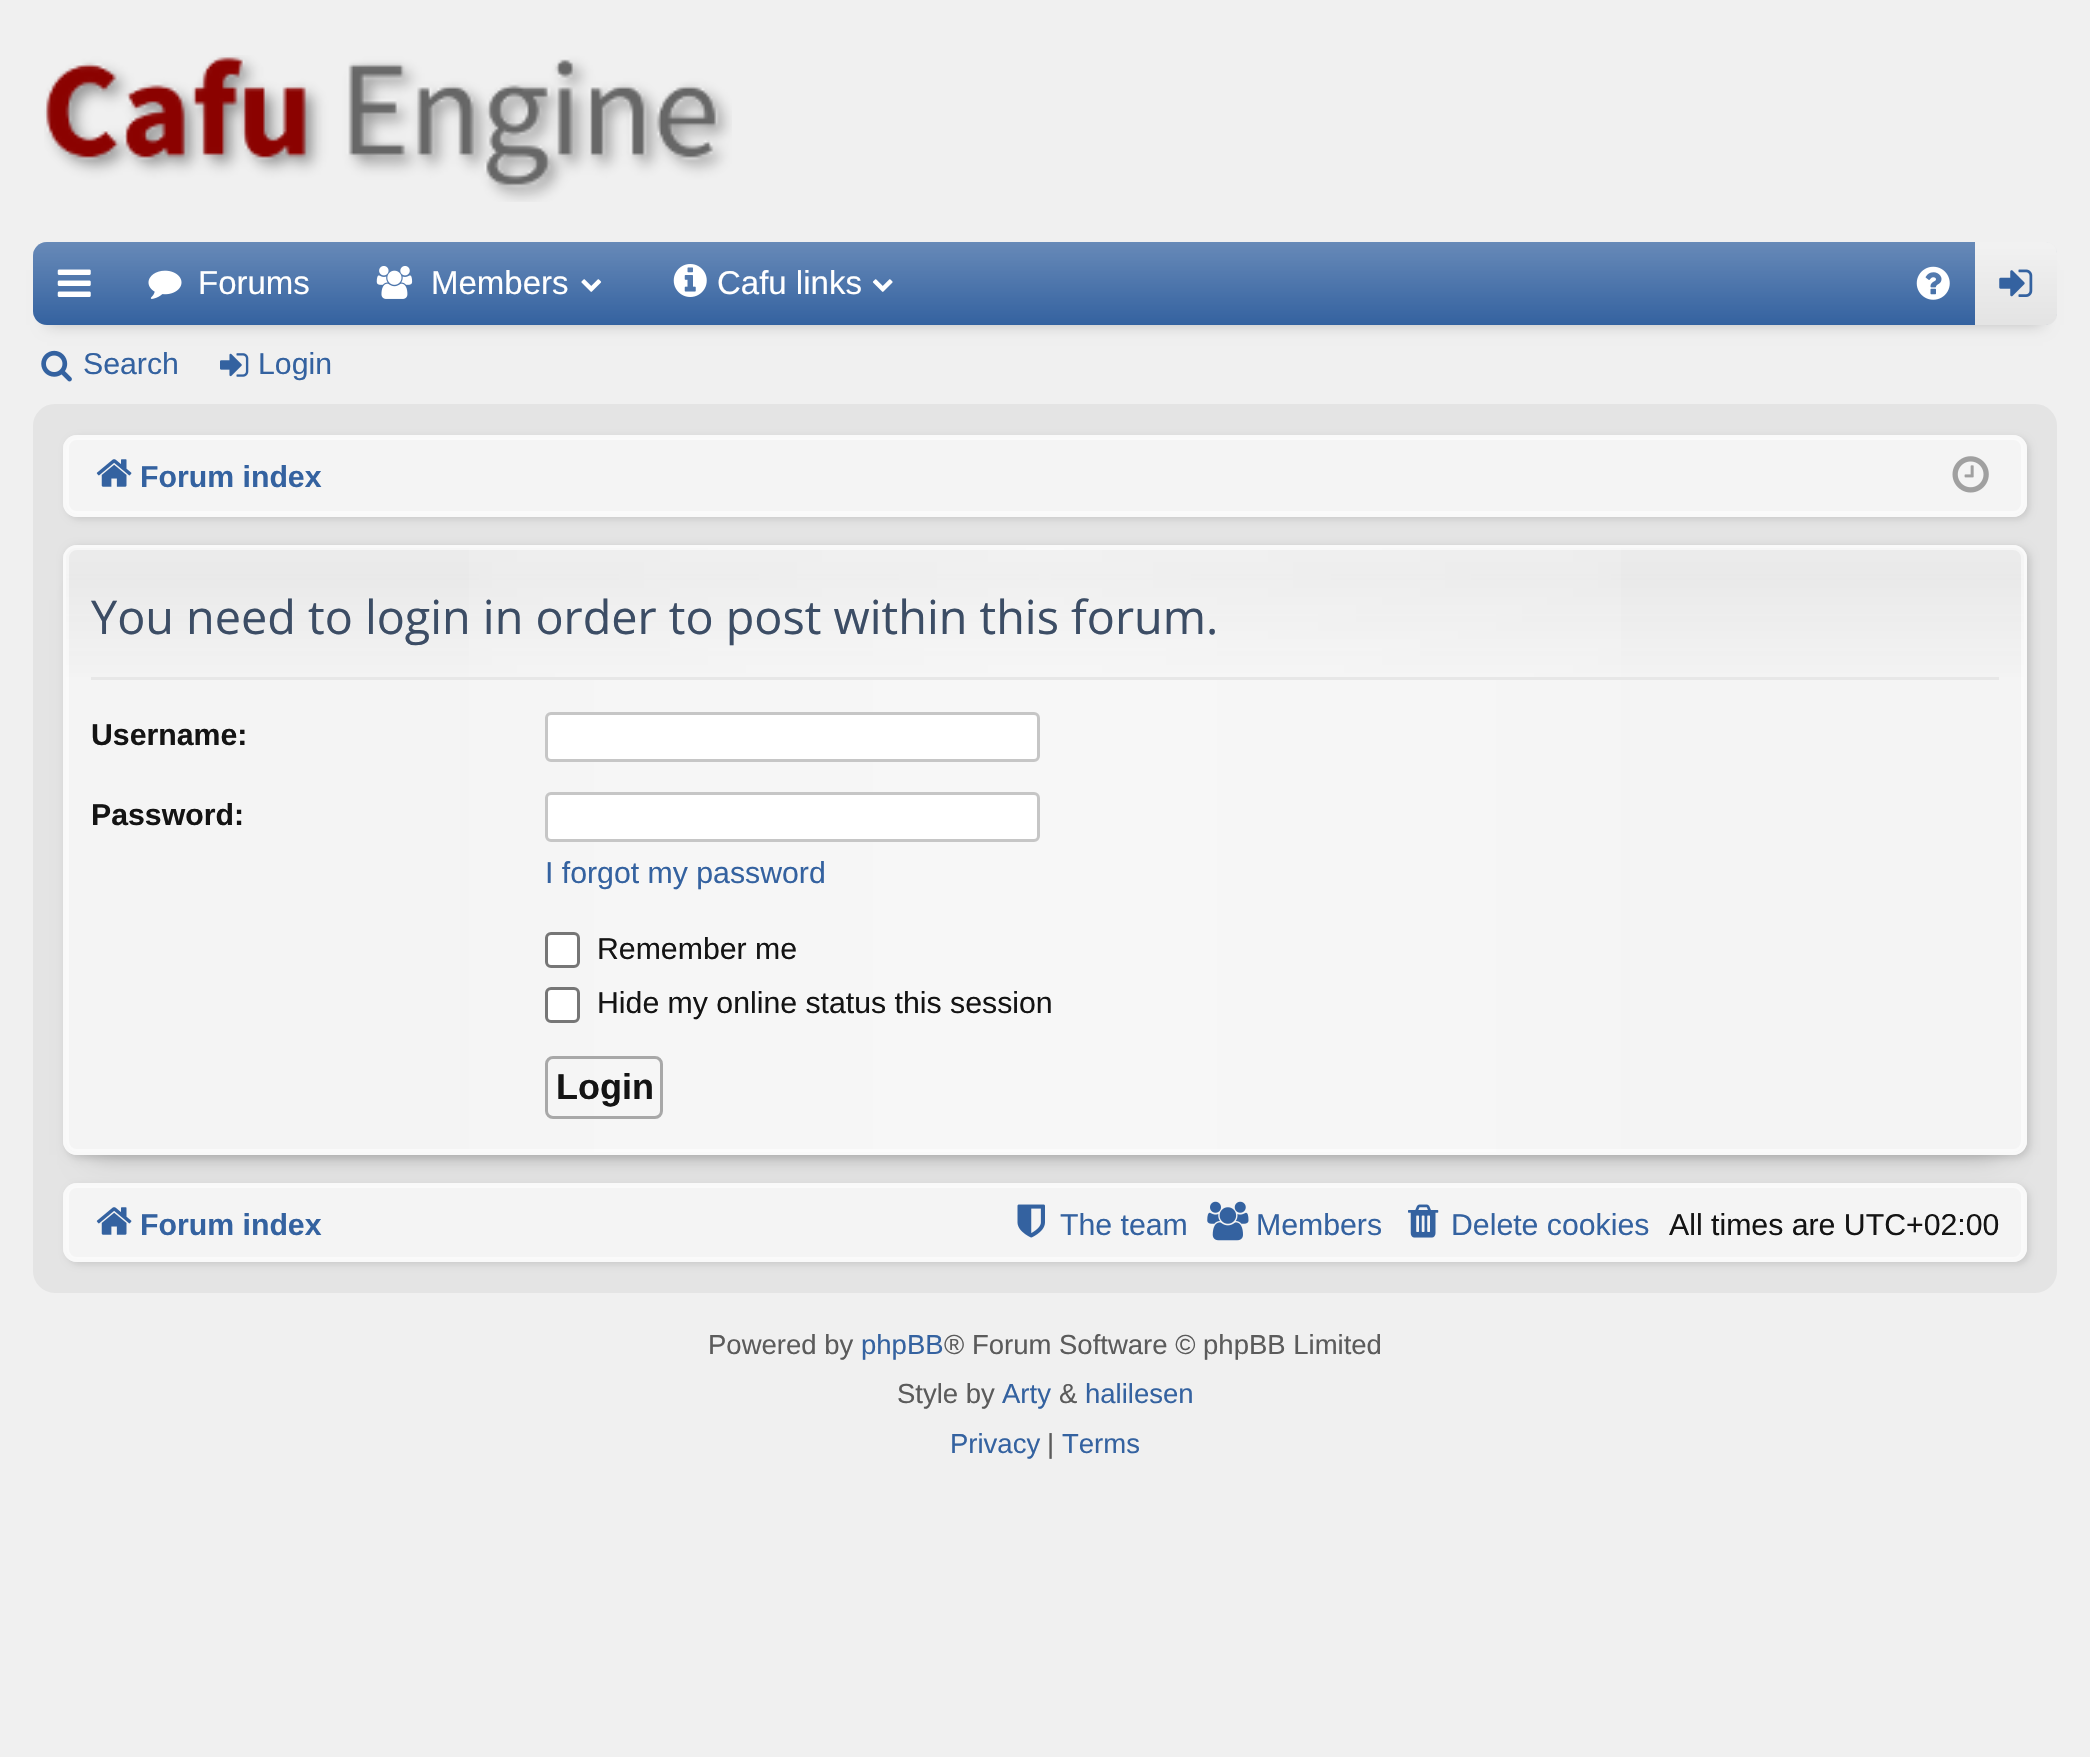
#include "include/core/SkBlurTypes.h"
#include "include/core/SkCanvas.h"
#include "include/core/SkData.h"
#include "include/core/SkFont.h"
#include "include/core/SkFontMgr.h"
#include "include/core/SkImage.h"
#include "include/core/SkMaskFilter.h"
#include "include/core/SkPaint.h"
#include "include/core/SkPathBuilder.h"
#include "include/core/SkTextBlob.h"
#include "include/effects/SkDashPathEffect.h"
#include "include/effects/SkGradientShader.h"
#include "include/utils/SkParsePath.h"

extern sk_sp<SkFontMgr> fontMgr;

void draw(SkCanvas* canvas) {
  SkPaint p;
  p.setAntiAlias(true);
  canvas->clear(SkColorSetRGB(240, 240, 240));
  canvas->drawImageRect(SkImages::DeferredFromEncodedData(SkData::MakeFromFileName("images/1.png")), SkRect::MakeLTRB(44, 55, 732, 202), SkSamplingOptions());
  p.setColor(SkColorSetARGB(51, 0, 0, 0));
  p.setMaskFilter(SkMaskFilter::MakeBlur(kNormal_SkBlurStyle, 7));
  canvas->drawRect(SkRect::MakeLTRB(47, 270, 2043, 325), p);
  p.setMaskFilter(nullptr);
  p.setColor(SkColorSetRGB(52, 98, 160));
  canvas->drawRoundRect(SkRect::MakeLTRB(33, 242, 2057, 325), 14, 14, p);
  {
    const SkColor colors[] = {SkColorSetARGB(64, 255, 255, 255), SkColorSetARGB(0, 255, 255, 255)};
    const float stops[] = {0, 1};
    const SkPoint ends[] = {{1045, 242}, {1045, 325}};
    p.setShader(SkGradientShader::MakeLinear(ends, colors, stops, 2, SkTileMode::kClamp));
    p.setAlpha(255);
  }
  canvas->drawRoundRect(SkRect::MakeLTRB(33, 242, 2057, 325), 14, 14, p);
  canvas->drawImageRect(SkImages::DeferredFromEncodedData(SkData::MakeFromFileName("images/2.png")), SkRect::MakeLTRB(57, 269, 91, 297), SkSamplingOptions());
  canvas->drawImageRect(SkImages::DeferredFromEncodedData(SkData::MakeFromFileName("images/3.png")), SkRect::MakeLTRB(148, 270, 182, 299), SkSamplingOptions());
  canvas->drawImageRect(SkImages::DeferredFromEncodedData(SkData::MakeFromFileName("images/4.png")), SkRect::MakeLTRB(376, 266, 413, 299), SkSamplingOptions());
  canvas->drawImageRect(SkImages::DeferredFromEncodedData(SkData::MakeFromFileName("images/5.png")), SkRect::MakeLTRB(581, 279, 602, 292), SkSamplingOptions());
  canvas->drawImageRect(SkImages::DeferredFromEncodedData(SkData::MakeFromFileName("images/6.png")), SkRect::MakeLTRB(673, 264, 707, 297), SkSamplingOptions());
  canvas->drawImageRect(SkImages::DeferredFromEncodedData(SkData::MakeFromFileName("images/7.png")), SkRect::MakeLTRB(872, 279, 893, 292), SkSamplingOptions());
  canvas->drawImageRect(SkImages::DeferredFromEncodedData(SkData::MakeFromFileName("images/8.png")), SkRect::MakeLTRB(1916, 266, 1950, 300), SkSamplingOptions());
  p.setShader(nullptr);
  p.setColor(SkColorSetRGB(228, 228, 228));
  canvas->drawPath(SkPathBuilder().moveTo(1975, 242).lineTo(2046, 242).cubicTo(2052, 242, 2057, 247, 2057, 253).lineTo(2057, 314).cubicTo(2057, 320, 2052, 325, 2046, 325).lineTo(1975, 325).close().detach(), p);
  {
    const SkColor colors[] = {SkColorSetARGB(128, 255, 255, 255), SkColorSetARGB(0, 255, 255, 255)};
    const float stops[] = {0, 1};
    const SkPoint ends[] = {{2016, 242}, {2016, 325}};
    p.setShader(SkGradientShader::MakeLinear(ends, colors, stops, 2, SkTileMode::kClamp));
    p.setAlpha(255);
  }
  canvas->drawPath(SkPathBuilder().moveTo(1975, 242).lineTo(2046, 242).cubicTo(2052, 242, 2057, 247, 2057, 253).lineTo(2057, 314).cubicTo(2057, 320, 2052, 325, 2046, 325).lineTo(1975, 325).close().detach(), p);
  canvas->drawImageRect(SkImages::DeferredFromEncodedData(SkData::MakeFromFileName("images/9.png")), SkRect::MakeLTRB(1999, 269, 2033, 297), SkSamplingOptions());
  canvas->drawImageRect(SkImages::DeferredFromEncodedData(SkData::MakeFromFileName("images/10.png")), SkRect::MakeLTRB(41, 350, 72, 382), SkSamplingOptions());
  canvas->drawImageRect(SkImages::DeferredFromEncodedData(SkData::MakeFromFileName("images/11.png")), SkRect::MakeLTRB(220, 353, 249, 377), SkSamplingOptions());
  p.setShader(nullptr);
  p.setColor(SkColorSetRGB(228, 228, 228));
  canvas->drawRoundRect(SkRect::MakeLTRB(34.5f, 405.5f, 2055.5f, 1291.5f), 20.5f, 20.5f, p);
  p.setStyle(SkPaint::kStroke_Style);
  p.setStrokeWidth(3);
  canvas->drawRoundRect(SkRect::MakeLTRB(34.5f, 405.5f, 2055.5f, 1291.5f), 20.5f, 20.5f, p);
  p.setStyle(SkPaint::kFill_Style);
  p.setColor(SkColorSetARGB(26, 0, 0, 0));
  p.setMaskFilter(SkMaskFilter::MakeBlur(kNormal_SkBlurStyle, 3));
  canvas->drawRoundRect(SkRect::MakeLTRB(66, 437, 2030, 520), 14, 14, p);
  p.setMaskFilter(nullptr);
  p.setColor(SkColorSetRGB(244, 244, 244));
  canvas->drawRoundRect(SkRect::MakeLTRB(63, 435, 2027, 517), 14, 14, p);
  p.setStyle(SkPaint::kStroke_Style);
  p.setColor(SkColorSetRGB(250, 250, 250));
  canvas->drawRoundRect(SkRect::MakeLTRB(67.5f, 438.5f, 2022.5f, 512.5f), 9.5f, 9.5f, p);
  p.setColor(SkColorSetRGB(249, 249, 249));
  canvas->drawRoundRect(SkRect::MakeLTRB(64.5f, 436.5f, 2025.5f, 515.5f), 12.5f, 12.5f, p);
  canvas->drawImageRect(SkImages::DeferredFromEncodedData(SkData::MakeFromFileName("images/12.png")), SkRect::MakeLTRB(96, 459, 132, 487), SkSamplingOptions());
  canvas->drawImageRect(SkImages::DeferredFromEncodedData(SkData::MakeFromFileName("images/13.png")), SkRect::MakeLTRB(1952, 456, 1989, 493), SkSamplingOptions());
  p.setStyle(SkPaint::kFill_Style);
  p.setColor(SkColorSetARGB(51, 0, 0, 0));
  p.setMaskFilter(SkMaskFilter::MakeBlur(kNormal_SkBlurStyle, 14));
  canvas->drawRect(SkRect::MakeLTRB(91, 600, 1999, 1155), p);
  p.setMaskFilter(nullptr);
  p.setColor(SkColorSetARGB(38, 0, 0, 0));
  p.setMaskFilter(SkMaskFilter::MakeBlur(kNormal_SkBlurStyle, 4));
  canvas->drawRoundRect(SkRect::MakeLTRB(66, 547, 2030, 1158), 14, 14, p);
  p.setMaskFilter(nullptr);
  p.setColor(SkColorSetRGB(244, 244, 244));
  canvas->drawRoundRect(SkRect::MakeLTRB(63, 545, 2027, 1155), 14, 14, p);
  canvas->save();
  canvas->clipPath(SkPathBuilder().moveTo(77, 545).lineTo(2013, 545).cubicTo(2020.5f, 545, 2027, 551.5f, 2027, 559).lineTo(2027, 1141).cubicTo(2027, 1148.5f, 2020.5f, 1155, 2013, 1155).lineTo(77, 1155).cubicTo(69.5f, 1155, 63, 1148.5f, 63, 1141).lineTo(63, 559).cubicTo(63, 551.5f, 69.5f, 545, 77, 545).close().detach(), true);
  {
    const SkColor colors[] = {SkColorSetARGB(51, 204, 204, 204), SkColorSetARGB(64, 204, 204, 204), SkColorSetARGB(0, 204, 204, 204)};
    const float stops[] = {0, 0.05f, 0.23f};
    const SkPoint ends[] = {{1045, 547}, {1045, 1152}};
    p.setShader(SkGradientShader::MakeLinear(ends, colors, stops, 3, SkTileMode::kClamp));
    p.setAlpha(255);
  }
  canvas->drawRect(SkRect::MakeLTRB(63, 547, 2027, 677), p);
  canvas->restore();
  {
    const SkColor colors[] = {SkColorSetARGB(0, 255, 255, 255), SkColorSetARGB(77, 255, 255, 255), SkColorSetARGB(0, 255, 255, 255)};
    const float stops[] = {0, 0.5f, 1};
    const SkPoint ends[] = {{66, 850}, {2024, 850}};
    p.setShader(SkGradientShader::MakeLinear(ends, colors, stops, 3, SkTileMode::kClamp));
    p.setAlpha(255);
  }
  canvas->drawRect(SkRect::MakeLTRB(469, 548, 1621, 1152), p);
  p.setStyle(SkPaint::kStroke_Style);
  p.setShader(nullptr);
  p.setColor(SkColorSetARGB(128, 255, 255, 255));
  canvas->drawRoundRect(SkRect::MakeLTRB(67.5f, 548.5f, 2022.5f, 1150.5f), 9.5f, 9.5f, p);
  p.setColor(SkColorSetRGB(249, 249, 249));
  canvas->drawRoundRect(SkRect::MakeLTRB(64.5f, 546.5f, 2025.5f, 1153.5f), 12.5f, 12.5f, p);
  p.setStyle(SkPaint::kFill_Style);
  p.setColor(SkColorSetRGB(231, 231, 231));
  canvas->drawRect(SkRect::MakeLTRB(91, 677, 1999, 680), p);
  p.setColor(SK_ColorWHITE);
  canvas->drawRoundRect(SkRect::MakeLTRB(546.5f, 713.5f, 1038.5f, 760.5f), 4.5f, 4.5f, p);
  p.setStyle(SkPaint::kStroke_Style);
  p.setColor(SkColorSetRGB(198, 198, 198));
  canvas->drawRoundRect(SkRect::MakeLTRB(546.5f, 713.5f, 1038.5f, 760.5f), 4.5f, 4.5f, p);
  p.setStyle(SkPaint::kFill_Style);
  p.setColor(SK_ColorWHITE);
  canvas->drawRoundRect(SkRect::MakeLTRB(546.5f, 793.5f, 1038.5f, 840.5f), 4.5f, 4.5f, p);
  p.setStyle(SkPaint::kStroke_Style);
  p.setColor(SkColorSetRGB(198, 198, 198));
  canvas->drawRoundRect(SkRect::MakeLTRB(546.5f, 793.5f, 1038.5f, 840.5f), 4.5f, 4.5f, p);
  p.setStyle(SkPaint::kFill_Style);
  p.setColor(SK_ColorWHITE);
  canvas->drawRoundRect(SkRect::MakeLTRB(546.5f, 933.5f, 578.5f, 966.5f), 4.5f, 4.5f, p);
  p.setStyle(SkPaint::kStroke_Style);
  p.setColor(SkColorSetRGB(118, 118, 118));
  canvas->drawRoundRect(SkRect::MakeLTRB(546.5f, 933.5f, 578.5f, 966.5f), 4.5f, 4.5f, p);
  p.setStyle(SkPaint::kFill_Style);
  p.setColor(SK_ColorWHITE);
  canvas->drawRoundRect(SkRect::MakeLTRB(546.5f, 988.5f, 578.5f, 1021.5f), 4.5f, 4.5f, p);
  p.setStyle(SkPaint::kStroke_Style);
  p.setColor(SkColorSetRGB(118, 118, 118));
  canvas->drawRoundRect(SkRect::MakeLTRB(546.5f, 988.5f, 578.5f, 1021.5f), 4.5f, 4.5f, p);
  p.setColor(SkColorSetRGB(168, 168, 168));
  canvas->drawRoundRect(SkRect::MakeLTRB(546.5f, 1057.5f, 661.5f, 1117.5f), 6.5f, 6.5f, p);
  p.setStyle(SkPaint::kFill_Style);
  p.setColor(SkColorSetARGB(26, 0, 0, 0));
  p.setMaskFilter(SkMaskFilter::MakeBlur(kNormal_SkBlurStyle, 3));
  canvas->drawRoundRect(SkRect::MakeLTRB(66, 1185, 2030, 1265), 14, 14, p);
  p.setMaskFilter(nullptr);
  p.setColor(SkColorSetRGB(244, 244, 244));
  canvas->drawRoundRect(SkRect::MakeLTRB(63, 1183, 2027, 1262), 14, 14, p);
  p.setStyle(SkPaint::kStroke_Style);
  p.setColor(SkColorSetRGB(250, 250, 250));
  canvas->drawRoundRect(SkRect::MakeLTRB(67.5f, 1186.5f, 2022.5f, 1258.5f), 9.5f, 9.5f, p);
  p.setColor(SkColorSetRGB(249, 249, 249));
  canvas->drawRoundRect(SkRect::MakeLTRB(64.5f, 1184.5f, 2025.5f, 1260.5f), 12.5f, 12.5f, p);
  canvas->drawImageRect(SkImages::DeferredFromEncodedData(SkData::MakeFromFileName("images/12.png")), SkRect::MakeLTRB(96, 1207, 132, 1235), SkSamplingOptions());
  canvas->drawImageRect(SkImages::DeferredFromEncodedData(SkData::MakeFromFileName("images/14.png")), SkRect::MakeLTRB(1017, 1204, 1045, 1238), SkSamplingOptions());
  canvas->drawImageRect(SkImages::DeferredFromEncodedData(SkData::MakeFromFileName("images/15.png")), SkRect::MakeLTRB(1207, 1201, 1249, 1241), SkSamplingOptions());
  canvas->drawImageRect(SkImages::DeferredFromEncodedData(SkData::MakeFromFileName("images/16.png")), SkRect::MakeLTRB(1408, 1204, 1439, 1238), SkSamplingOptions());
  SkFont font1(fontMgr->matchFamilyStyle("Liberation Sans", SkFontStyle::Normal()), 33);
  font1.setSubpixel(true);
  p.setStyle(SkPaint::kFill_Style);
  p.setColor(SK_ColorWHITE);
  canvas->drawString("Forums", 198, 294, font1, p);
  canvas->drawString("Members", 431, 294, font1, p);
  canvas->drawString("Cafu links", 717, 294, font1, p);
  SkFont font2(fontMgr->matchFamilyStyle("Liberation Sans", SkFontStyle::Normal()), 30.25f);
  font2.setSubpixel(true);
  p.setColor(SkColorSetRGB(52, 98, 160));
  canvas->drawString("Search", 83, 374, font2, p);
  canvas->drawString("Login", 258, 374, font2, p);
  SkFont font3(fontMgr->matchFamilyStyle("Liberation Sans", SkFontStyle::Bold()), 30.25f);
  font3.setSubpixel(true);
  canvas->drawString("Forum index", 140, 487, font3, p);
  SkFont font4(fontMgr->matchFamilyStyle("Open Sans", SkFontStyle::Normal()), 46.75f);
  font4.setSubpixel(true);
  p.setColor(SkColorSetRGB(60, 77, 101));
  canvas->drawString("You need to login in order to post within this forum.", 91, 634, font4, p);
  p.setColor(SkColorSetRGB(20, 20, 20));
  canvas->drawString("Username:", 91, 745, font3, p);
  canvas->drawString("Password:", 91, 825, font3, p);
  p.setColor(SkColorSetRGB(52, 98, 160));
  canvas->drawString("I forgot my password", 545, 883, font2, p);
  p.setColor(SkColorSetRGB(20, 20, 20));
  canvas->drawString("Remember me", 597, 959, font2, p);
  canvas->drawString("Hide my online status this session", 597, 1013, font2, p);
  SkFont font5(fontMgr->matchFamilyStyle("Liberation Sans", SkFontStyle::Bold()), 36);
  font5.setSubpixel(true);
  canvas->drawString("Login", 556, 1099, font5, p);
  p.setColor(SkColorSetRGB(52, 98, 160));
  canvas->drawString("Forum index", 140, 1235, font3, p);
  canvas->drawString("The team", 1060, 1235, font2, p);
  canvas->drawString("Members", 1256, 1235, font2, p);
  canvas->drawString("Delete cookies", 1451, 1235, font2, p);
  p.setColor(SkColorSetRGB(20, 20, 20));
  canvas->drawString("All times are UTC+02:00", 1669, 1235, font2, p);
  SkFont font6(fontMgr->matchFamilyStyle("Liberation Sans", SkFontStyle::Normal()), 27.5f);
  font6.setSubpixel(true);
  p.setColor(SkColorSetRGB(91, 91, 91));
  canvas->drawString("Powered by", 708, 1354, font6, p);
  p.setColor(SkColorSetRGB(52, 98, 160));
  canvas->drawString("phpBB", 861, 1354, font6, p);
  p.setColor(SkColorSetRGB(91, 91, 91));
  canvas->drawString("® Forum Software © phpBB Limited", 944, 1354, font6, p);
  canvas->drawString("Style by", 897, 1403, font6, p);
  p.setColor(SkColorSetRGB(52, 98, 160));
  canvas->drawString("Arty", 1002, 1403, font6, p);
  p.setColor(SkColorSetRGB(91, 91, 91));
  canvas->drawString("&", 1059, 1403, font6, p);
  p.setColor(SkColorSetRGB(52, 98, 160));
  canvas->drawString("halilesen", 1085, 1403, font6, p);
  canvas->drawString("Privacy", 950, 1453, font6, p);
  p.setColor(SkColorSetRGB(91, 91, 91));
  canvas->drawString("|", 1047, 1453, font6, p);
  p.setColor(SkColorSetRGB(52, 98, 160));
  canvas->drawString("Terms", 1062, 1453, font6, p);
}
